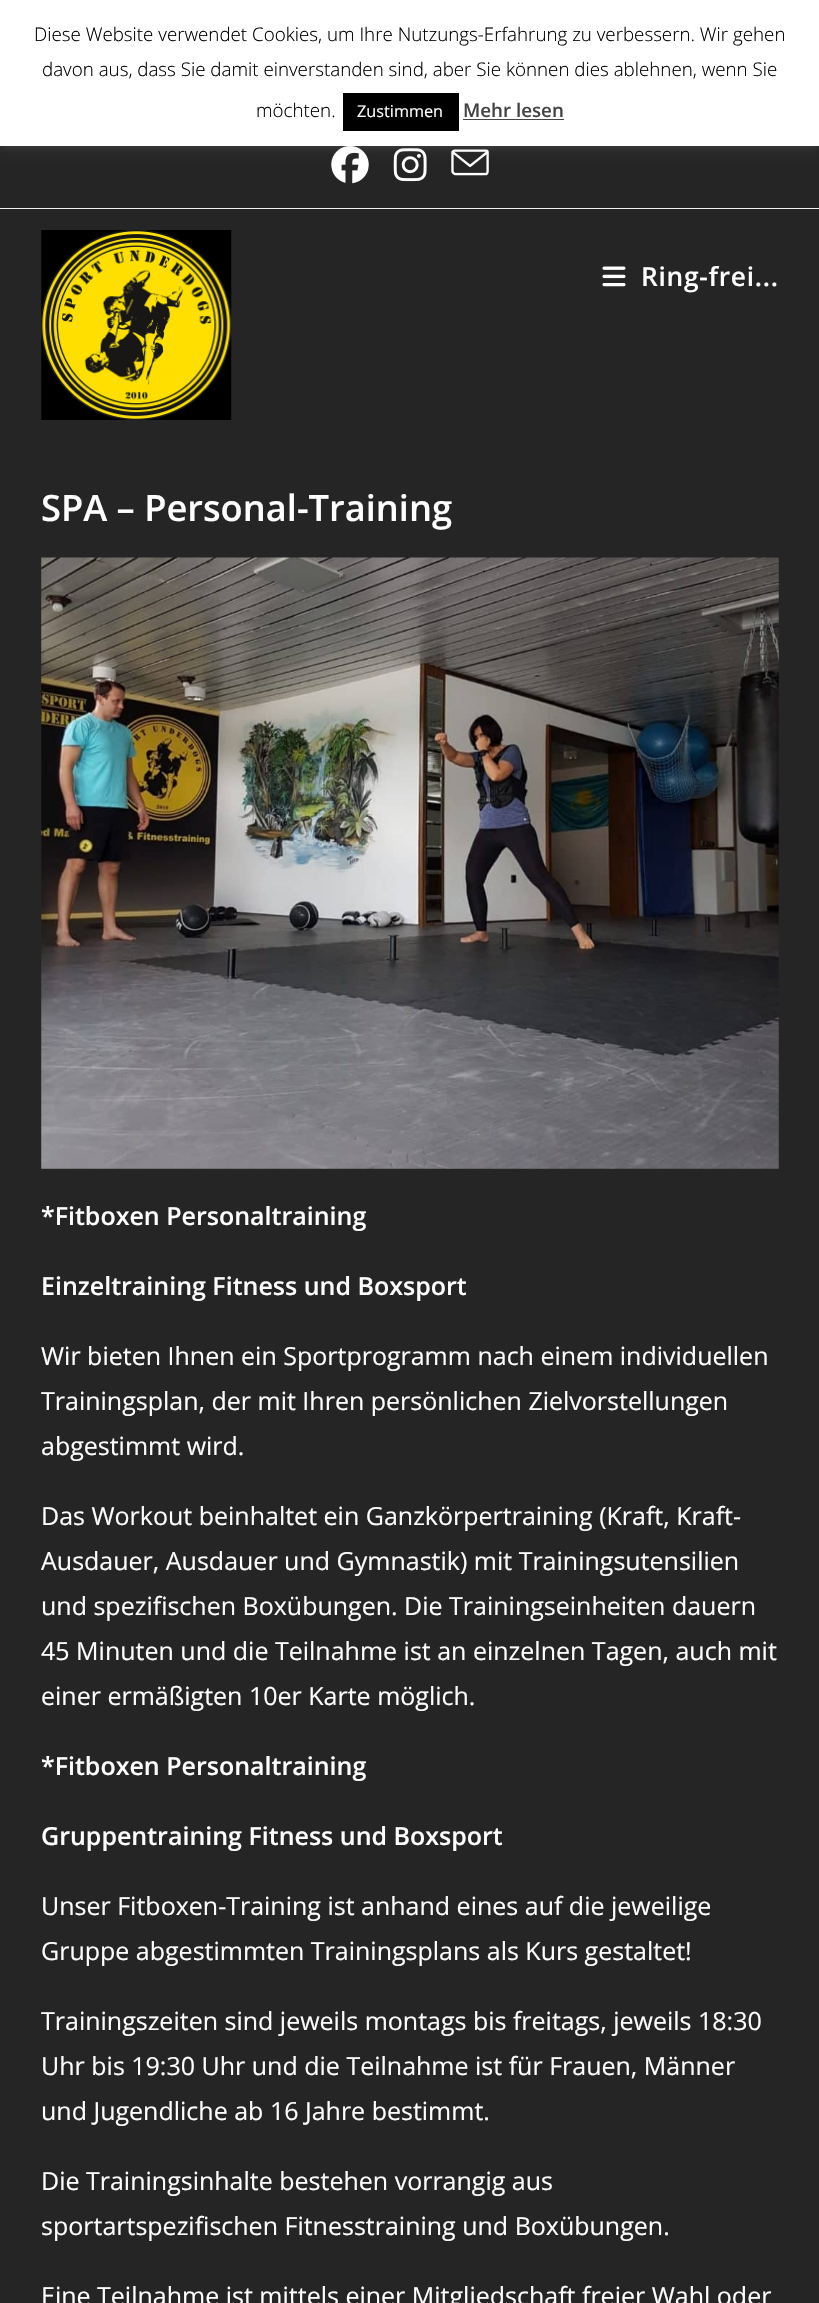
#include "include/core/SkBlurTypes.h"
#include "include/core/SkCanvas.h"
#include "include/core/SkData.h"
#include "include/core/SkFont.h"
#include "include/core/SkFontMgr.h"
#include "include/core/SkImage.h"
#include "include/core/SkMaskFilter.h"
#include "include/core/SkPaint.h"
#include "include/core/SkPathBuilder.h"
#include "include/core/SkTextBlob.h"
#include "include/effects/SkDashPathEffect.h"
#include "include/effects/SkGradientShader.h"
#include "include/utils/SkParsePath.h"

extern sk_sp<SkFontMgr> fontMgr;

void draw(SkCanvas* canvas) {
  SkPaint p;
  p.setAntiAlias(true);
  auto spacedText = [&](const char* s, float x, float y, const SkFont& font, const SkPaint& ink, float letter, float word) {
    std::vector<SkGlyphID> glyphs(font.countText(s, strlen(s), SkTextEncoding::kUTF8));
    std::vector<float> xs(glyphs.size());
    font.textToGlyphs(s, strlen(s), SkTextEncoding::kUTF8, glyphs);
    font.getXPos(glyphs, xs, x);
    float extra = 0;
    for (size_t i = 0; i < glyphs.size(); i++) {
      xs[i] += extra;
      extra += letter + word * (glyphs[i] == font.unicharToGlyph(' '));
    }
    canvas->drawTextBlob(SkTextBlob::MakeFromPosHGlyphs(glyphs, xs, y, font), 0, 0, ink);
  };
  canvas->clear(SkColorSetRGB(37, 37, 37));
  canvas->drawImageRect(SkImages::DeferredFromEncodedData(SkData::MakeFromFileName("images/1.png")), SkRect::MakeLTRB(331, 146, 369, 184), SkSamplingOptions());
  canvas->drawImageRect(SkImages::DeferredFromEncodedData(SkData::MakeFromFileName("images/2.png")), SkRect::MakeLTRB(393, 148, 427, 182), SkSamplingOptions());
  canvas->drawImageRect(SkImages::DeferredFromEncodedData(SkData::MakeFromFileName("images/3.png")), SkRect::MakeLTRB(451, 149, 489, 176), SkSamplingOptions());
  p.setColor(SkColorSetARGB(77, 172, 171, 171));
  p.setMaskFilter(SkMaskFilter::MakeBlur(kNormal_SkBlurStyle, 6));
  canvas->drawRect(SkRect::MakeLTRB(0, -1, 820, 145), p);
  p.setMaskFilter(nullptr);
  p.setColor(SK_ColorWHITE);
  canvas->drawRect(SkRect::MakeLTRB(0, 0, 819, 146), p);
  p.setColor(SK_ColorBLACK);
  canvas->drawRect(SkRect::MakeLTRB(343, 93, 459, 131), p);
  p.setColor(SkColorSetRGB(68, 68, 68));
  canvas->drawRect(SkRect::MakeLTRB(463, 119, 564, 120), p);
  p.setColor(SkColorSetRGB(241, 241, 241));
  canvas->drawRect(SkRect::MakeLTRB(0, 208, 819, 209), p);
  canvas->drawImageRect(SkImages::DeferredFromEncodedData(SkData::MakeFromFileName("images/4.png")), SkRect::MakeLTRB(41, 230, 232, 420), SkSamplingOptions());
  canvas->drawImageRect(SkImages::DeferredFromEncodedData(SkData::MakeFromFileName("images/5.png")), SkRect::MakeLTRB(602, 266, 626, 287), SkSamplingOptions());
  canvas->drawImageRect(SkImages::DeferredFromEncodedData(SkData::MakeFromFileName("images/6.png")), SkRect::MakeLTRB(41, 557, 779, 1169), SkSamplingOptions());
  SkFont font1(fontMgr->matchFamilyStyle("Open Sans", SkFontStyle(300, SkFontStyle::kNormal_Width, SkFontStyle::kUpright_Slant)), 18.75f);
  font1.setSubpixel(true);
  p.setColor(SK_ColorBLACK);
  canvas->drawString("Diese Website verwendet Cookies, um Ihre Nutzungs-Erfahrung zu verbessern. Wir gehen", 34, 41, font1, p);
  canvas->drawString("davon aus, dass Sie damit einverstanden sind, aber Sie können dies ablehnen, wenn Sie", 42, 76, font1, p);
  canvas->drawString("möchten.", 256, 117, font1, p);
  SkFont font2(fontMgr->matchFamilyStyle("Open Sans", SkFontStyle::Normal()), 16.25f);
  font2.setSubpixel(true);
  p.setColor(SK_ColorWHITE);
  canvas->drawString("Zustimmen", 357, 117, font2, p);
  SkFont font3(fontMgr->matchFamilyStyle("Open Sans", SkFontStyle(600, SkFontStyle::kNormal_Width, SkFontStyle::kUpright_Slant)), 18.75f);
  font3.setSubpixel(true);
  p.setColor(SkColorSetRGB(68, 68, 68));
  canvas->drawString("Mehr lesen", 463, 117, font3, p);
  SkFont font4(fontMgr->matchFamilyStyle("Open Sans", SkFontStyle(600, SkFontStyle::kNormal_Width, SkFontStyle::kUpright_Slant)), 26.25f);
  font4.setSubpixel(true);
  p.setColor(SK_ColorWHITE);
  spacedText("Ring-frei...", 641, 286, font4, p, 0.75f, 0);
  SkFont font5(fontMgr->matchFamilyStyle("Open Sans", SkFontStyle(600, SkFontStyle::kNormal_Width, SkFontStyle::kUpright_Slant)), 36.25f);
  font5.setSubpixel(true);
  canvas->drawString("SPA – Personal-Training", 41, 521, font5, p);
  SkFont font6(fontMgr->matchFamilyStyle("Open Sans", SkFontStyle(600, SkFontStyle::kNormal_Width, SkFontStyle::kUpright_Slant)), 25);
  font6.setSubpixel(true);
  canvas->drawString("*Fitboxen Personaltraining", 41, 1225, font6, p);
  canvas->drawString("Einzeltraining Fitness und Boxsport", 41, 1295, font6, p);
  SkFont font7(fontMgr->matchFamilyStyle("Open Sans", SkFontStyle::Normal()), 25);
  font7.setSubpixel(true);
  canvas->drawString("Wir bieten Ihnen ein Sportprogramm nach einem individuellen", 41, 1365, font7, p);
  canvas->drawString("Trainingsplan, der mit Ihren persönlichen Zielvorstellungen", 41, 1410, font7, p);
  canvas->drawString("abgestimmt wird.", 41, 1455, font7, p);
  canvas->drawString("Das Workout beinhaltet ein Ganzkörpertraining (Kraft, Kraft-", 41, 1525, font7, p);
  canvas->drawString("Ausdauer, Ausdauer und Gymnastik) mit Trainingsutensilien", 41, 1570, font7, p);
  canvas->drawString("und spezifischen Boxübungen. Die Trainingseinheiten dauern", 41, 1615, font7, p);
  canvas->drawString("45 Minuten und die Teilnahme ist an einzelnen Tagen, auch mit", 41, 1660, font7, p);
  canvas->drawString("einer ermäßigten 10er Karte möglich.", 41, 1705, font7, p);
  canvas->drawString("*Fitboxen Personaltraining", 41, 1775, font6, p);
  canvas->drawString("Gruppentraining Fitness und Boxsport", 41, 1845, font6, p);
  canvas->drawString("Unser Fitboxen-Training ist anhand eines auf die jeweilige", 41, 1915, font7, p);
  canvas->drawString("Gruppe abgestimmten Trainingsplans als Kurs gestaltet!", 41, 1960, font7, p);
  canvas->drawString("Trainingszeiten sind jeweils montags bis freitags, jeweils 18:30", 41, 2030, font7, p);
  canvas->drawString("Uhr bis 19:30 Uhr und die Teilnahme ist für Frauen, Männer", 41, 2075, font7, p);
  canvas->drawString("und Jugendliche ab 16 Jahre bestimmt.", 41, 2120, font7, p);
  canvas->drawString("Die Trainingsinhalte bestehen vorrangig aus", 41, 2190, font7, p);
  canvas->drawString("sportartspezifischen Fitnesstraining und Boxübungen.", 41, 2235, font7, p);
  canvas->drawString("Eine Teilnahme ist mittels einer Mitgliedschaft freier Wahl oder", 41, 2305, font7, p);
}
